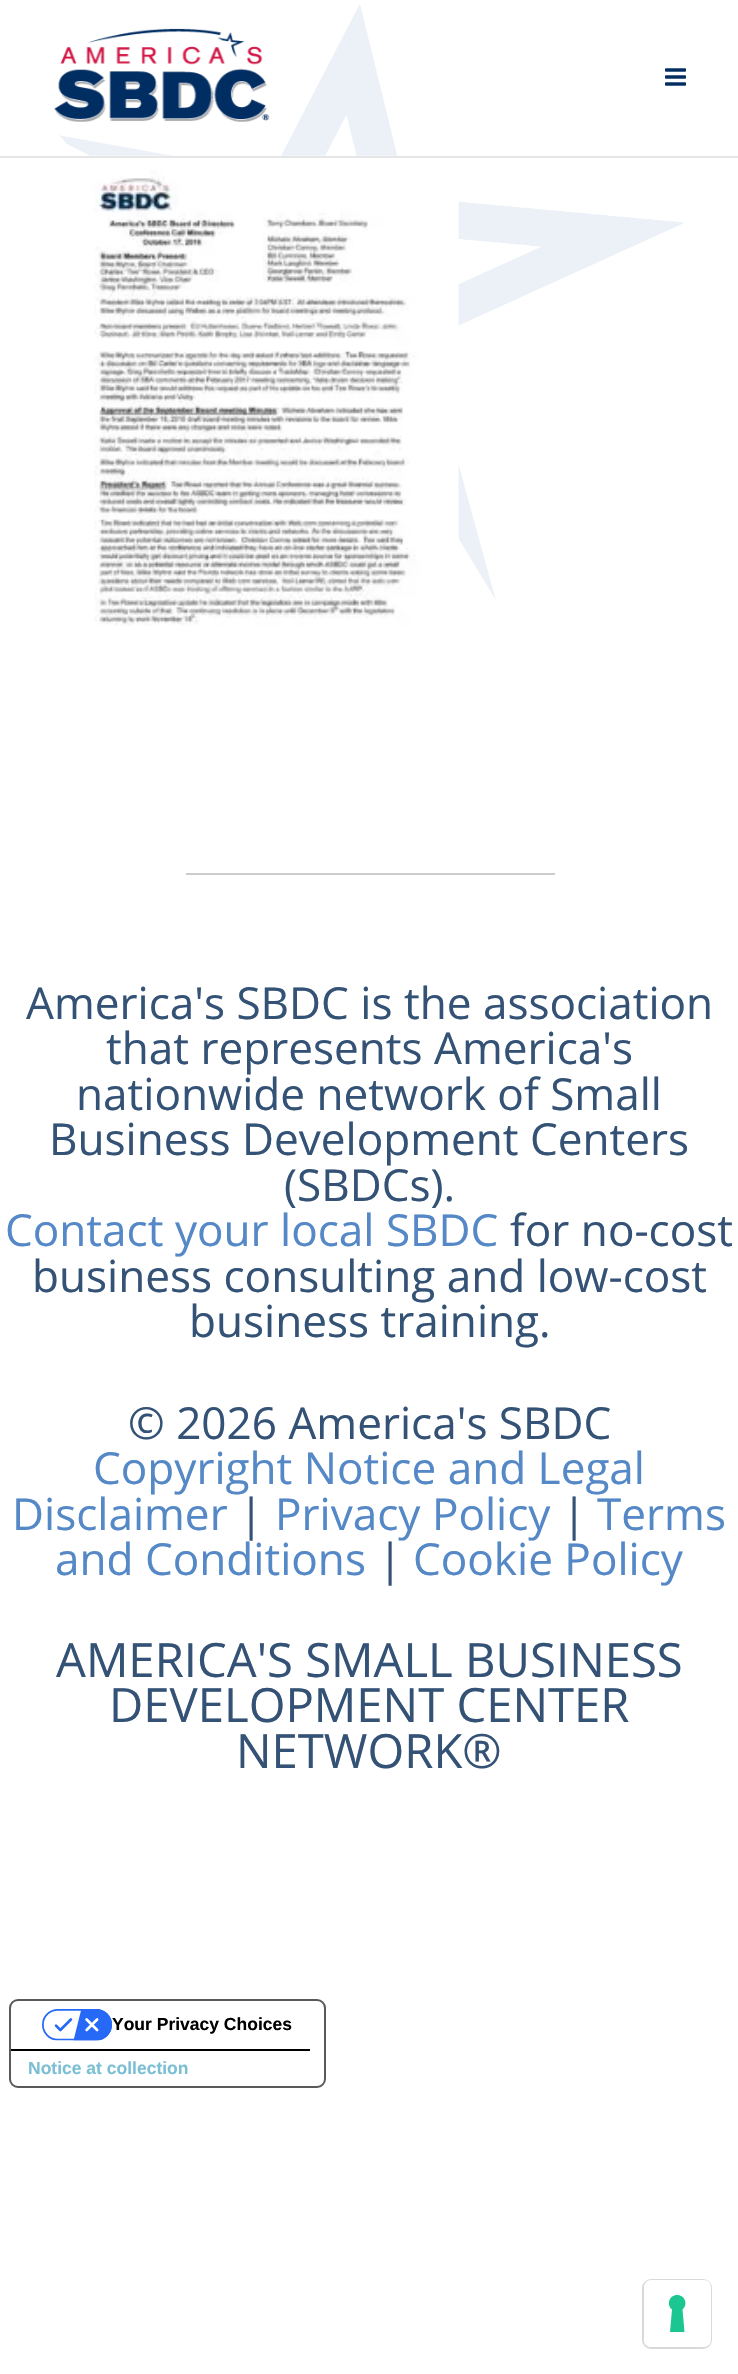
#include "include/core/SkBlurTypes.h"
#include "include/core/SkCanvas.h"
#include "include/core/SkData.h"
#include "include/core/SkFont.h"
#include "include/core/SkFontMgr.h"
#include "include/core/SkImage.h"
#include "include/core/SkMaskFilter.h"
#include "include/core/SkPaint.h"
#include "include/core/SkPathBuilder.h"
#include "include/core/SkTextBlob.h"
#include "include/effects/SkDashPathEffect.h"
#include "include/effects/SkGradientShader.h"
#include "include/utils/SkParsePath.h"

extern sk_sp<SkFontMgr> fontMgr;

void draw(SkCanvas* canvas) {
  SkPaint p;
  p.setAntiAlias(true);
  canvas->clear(SK_ColorWHITE);
  canvas->drawImageRect(SkImages::DeferredFromEncodedData(SkData::MakeFromFileName("images/1.png")), SkRect::MakeLTRB(59, 4, 684, 600), SkSamplingOptions());
  canvas->drawImageRect(SkImages::DeferredFromEncodedData(SkData::MakeFromFileName("images/4.png")), SkRect::MakeLTRB(90, 155, 459, 626), SkSamplingOptions());
  p.setColor(SkColorSetRGB(230, 230, 230));
  canvas->drawPath(SkPathBuilder().moveTo(0, 156).lineTo(0, 158).lineTo(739, 158).lineTo(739, 0).lineTo(738, 0).lineTo(738, 156).close().detach(), p);
  canvas->drawImageRect(SkImages::DeferredFromEncodedData(SkData::MakeFromFileName("images/2.png")), SkRect::MakeLTRB(54, 28, 270, 122), SkSamplingOptions());
  canvas->drawImageRect(SkImages::DeferredFromEncodedData(SkData::MakeFromFileName("images/3.png")), SkRect::MakeLTRB(665, 68, 686, 86), SkSamplingOptions());
  p.setColor(SkColorSetRGB(204, 204, 204));
  canvas->drawRect(SkRect::MakeLTRB(186, 873, 555, 875), p);
  p.setStyle(SkPaint::kStroke_Style);
  p.setStrokeWidth(2);
  p.setColor(SkColorSetRGB(89, 89, 89));
  canvas->drawRoundRect(SkRect::MakeLTRB(10, 2000, 325, 2087), 8, 8, p);
  p.setStyle(SkPaint::kFill_Style);
  p.setColor(SK_ColorBLACK);
  canvas->drawRect(SkRect::MakeLTRB(11, 2049, 310, 2051), p);
  canvas->drawImageRect(SkImages::DeferredFromEncodedData(SkData::MakeFromFileName("images/5.png")), SkRect::MakeLTRB(42, 2009, 112, 2041), SkSamplingOptions());
  p.setStyle(SkPaint::kStroke_Style);
  p.setColor(SkColorSetRGB(217, 217, 217));
  canvas->drawRoundRect(SkRect::MakeLTRB(643, 2280, 711, 2348), 8, 8, p);
  p.setStyle(SkPaint::kFill_Style);
  p.setColor(SK_ColorWHITE);
  canvas->drawRoundRect(SkRect::MakeLTRB(644, 2280, 711, 2347), 7, 7, p);
  p.setColor(SkColorSetRGB(28, 198, 145));
  canvas->drawPath(SkPathBuilder(SkPathFillType::kEvenOdd).moveTo(677, 2295).cubicTo(685, 2295, 688.5f, 2304.5f, 682.5f, 2309.5f).lineTo(684.5f, 2332).lineTo(670, 2332).lineTo(672, 2309.5f).cubicTo(666, 2304.5f, 669.5f, 2295, 677, 2295).close().detach(), p);
  SkFont font1(fontMgr->matchFamilyStyle("Open Sans", SkFontStyle::Normal()), 44.1f);
  font1.setSubpixel(true);
  p.setColor(SkColorSetRGB(52, 82, 117));
  canvas->drawString("America's SBDC is the association", 26, 1019, font1, p);
  canvas->drawString("that represents America's", 106, 1064, font1, p);
  canvas->drawString("nationwide network of Small", 76, 1110, font1, p);
  canvas->drawString("Business Development Centers", 49, 1155, font1, p);
  canvas->drawString("(SBDCs).", 284, 1201, font1, p);
  p.setColor(SkColorSetRGB(85, 136, 198));
  canvas->drawString("Contact your local SBDC", 5, 1246, font1, p);
  p.setColor(SkColorSetRGB(52, 82, 117));
  canvas->drawString("for no-cost", 510, 1246, font1, p);
  canvas->drawString("business consulting and low-cost", 32, 1292, font1, p);
  canvas->drawString("business training.", 189, 1337, font1, p);
  canvas->drawString("© 2026 America's SBDC", 128, 1439, font1, p);
  p.setColor(SkColorSetRGB(85, 136, 198));
  canvas->drawString("Copyright Notice and Legal", 93, 1484, font1, p);
  canvas->drawString("Disclaimer", 12, 1530, font1, p);
  p.setColor(SkColorSetRGB(52, 82, 117));
  canvas->drawString("|", 239, 1530, font1, p);
  p.setColor(SkColorSetRGB(85, 136, 198));
  canvas->drawString("Privacy Policy", 275, 1530, font1, p);
  p.setColor(SkColorSetRGB(52, 82, 117));
  canvas->drawString("|", 562, 1530, font1, p);
  p.setColor(SkColorSetRGB(85, 136, 198));
  canvas->drawString("Terms", 597, 1530, font1, p);
  canvas->drawString("and Conditions", 55, 1575, font1, p);
  p.setColor(SkColorSetRGB(52, 82, 117));
  canvas->drawString("|", 378, 1575, font1, p);
  p.setColor(SkColorSetRGB(85, 136, 198));
  canvas->drawString("Cookie Policy", 413, 1575, font1, p);
  SkFont font2(fontMgr->matchFamilyStyle("Open Sans", SkFontStyle::Normal()), 47.25f);
  font2.setSubpixel(true);
  p.setColor(SkColorSetRGB(52, 82, 117));
  canvas->drawString("AMERICA'S SMALL BUSINESS", 56, 1677, font2, p);
  canvas->drawString("DEVELOPMENT CENTER", 109, 1722, font2, p);
  canvas->drawString("NETWORK®", 236, 1768, font2, p);
  SkFont font3(fontMgr->matchFamilyStyle("Liberation Sans", SkFontStyle::Bold()), 17.5f);
  font3.setSubpixel(true);
  p.setColor(SK_ColorBLACK);
  canvas->drawString("Your Privacy Choices", 112, 2030, font3, p);
  p.setColor(SkColorSetRGB(122, 191, 211));
  canvas->drawString("Notice at collection", 28, 2074, font3, p);
}
